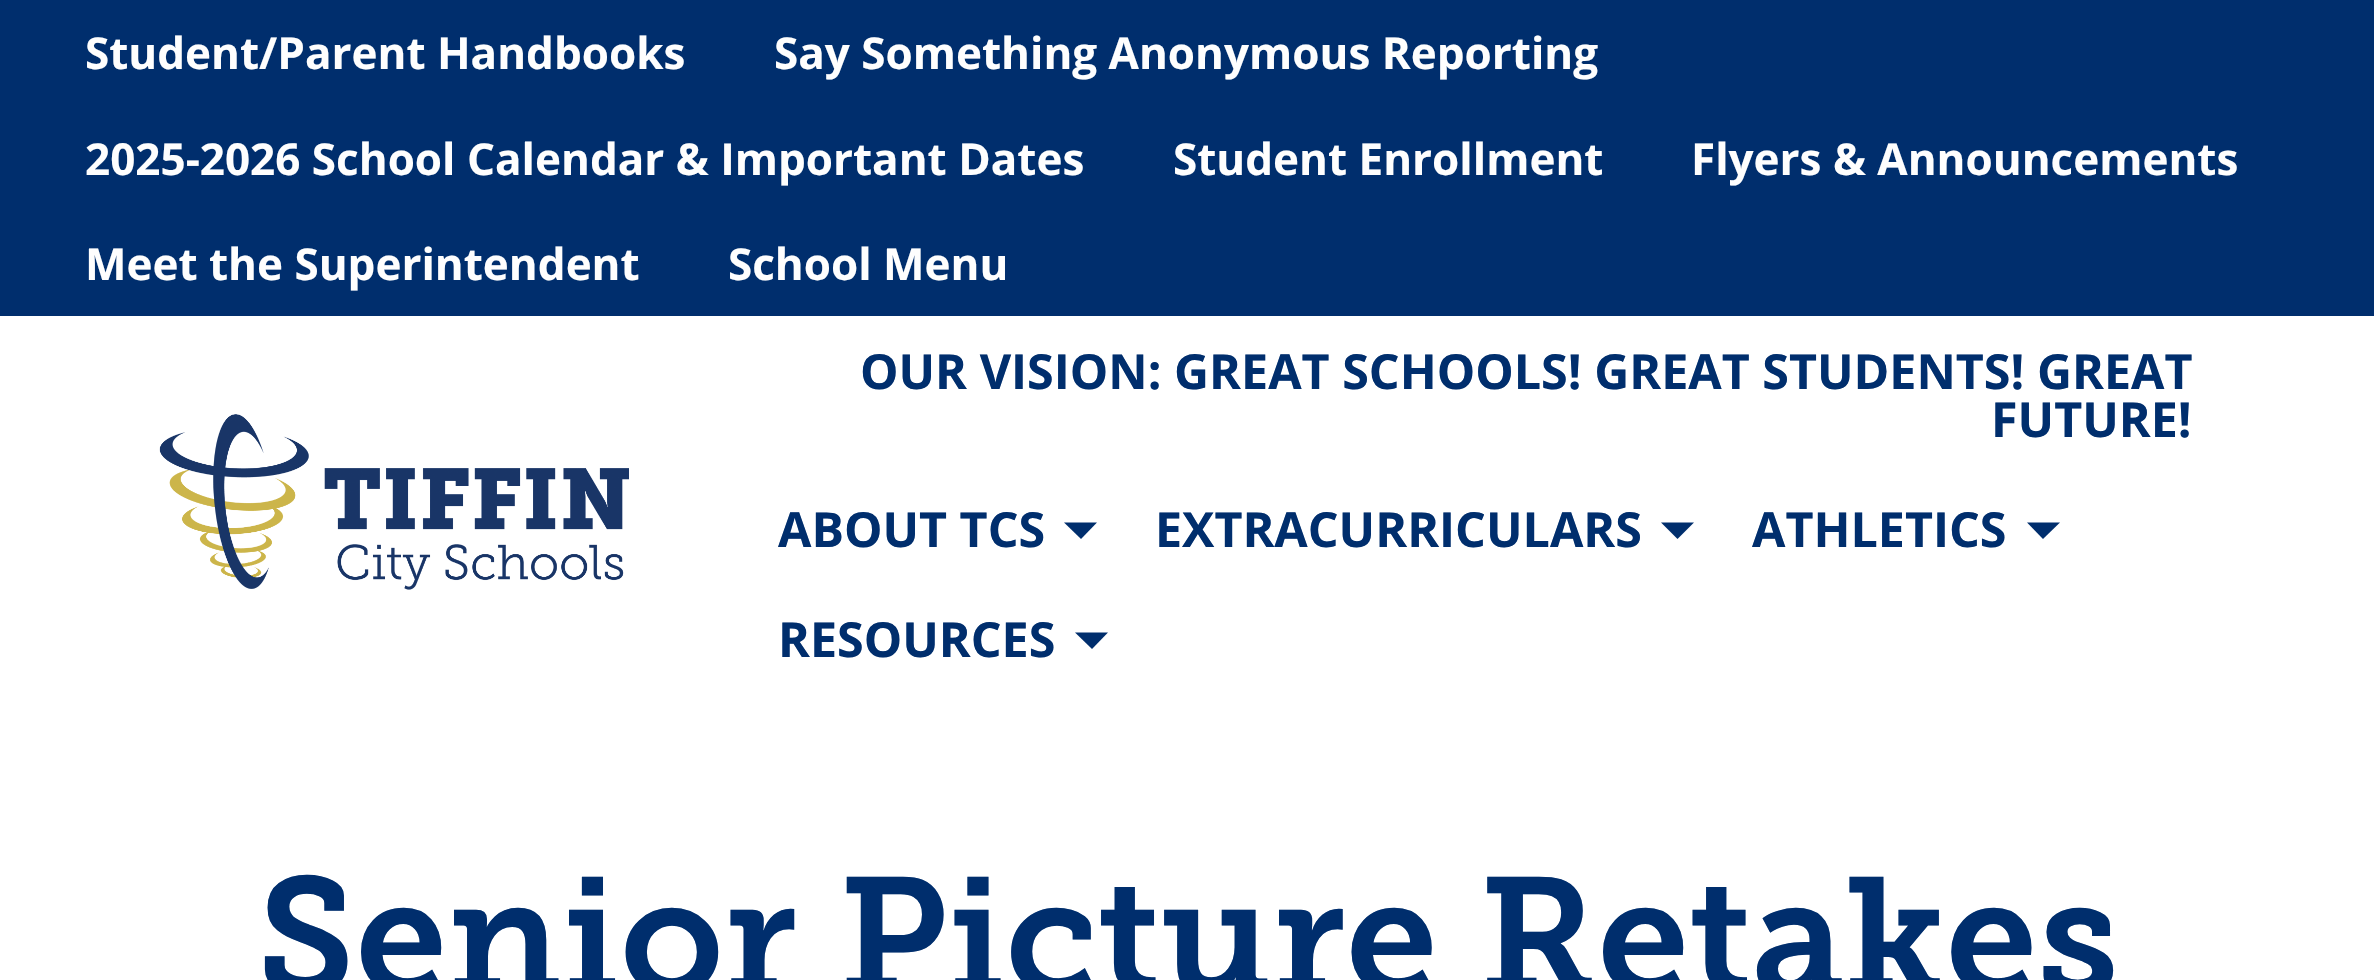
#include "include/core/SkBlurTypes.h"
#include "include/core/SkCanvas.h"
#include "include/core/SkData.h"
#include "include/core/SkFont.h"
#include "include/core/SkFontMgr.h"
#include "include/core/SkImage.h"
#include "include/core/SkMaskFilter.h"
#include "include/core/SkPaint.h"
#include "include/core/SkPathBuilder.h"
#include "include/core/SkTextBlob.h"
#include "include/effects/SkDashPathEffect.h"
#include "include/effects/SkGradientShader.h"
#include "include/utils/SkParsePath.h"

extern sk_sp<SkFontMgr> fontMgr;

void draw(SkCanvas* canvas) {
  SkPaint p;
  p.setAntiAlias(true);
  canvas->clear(SK_ColorWHITE);
  p.setColor(SkColorSetRGB(0, 46, 109));
  canvas->drawRect(SkRect::MakeLTRB(0, 0, 2374, 316), p);
  canvas->drawImageRect(SkImages::DeferredFromEncodedData(SkData::MakeFromFileName("images/1.png")), SkRect::MakeLTRB(159, 414, 629, 590), SkSamplingOptions());
  canvas->drawPath(SkPathBuilder().moveTo(1064, 522.5f).lineTo(1097, 522.5f).lineTo(1081, 539).close().detach(), p);
  canvas->drawPath(SkPathBuilder().moveTo(1661, 522.5f).lineTo(1694, 522.5f).lineTo(1677.5f, 539).close().detach(), p);
  canvas->drawPath(SkPathBuilder().moveTo(2027, 522.5f).lineTo(2060, 522.5f).lineTo(2043, 539).close().detach(), p);
  canvas->drawPath(SkPathBuilder().moveTo(1075, 632.5f).lineTo(1108, 632.5f).lineTo(1092, 649).close().detach(), p);
  SkFont font1(fontMgr->matchFamilyStyle("Open Sans", SkFontStyle::Bold()), 44);
  font1.setSubpixel(true);
  p.setColor(SkColorSetRGB(254, 254, 254));
  canvas->drawString("Student/Parent Handbooks", 85, 69, font1, p);
  canvas->drawString("Say Something Anonymous Reporting", 774, 69, font1, p);
  canvas->drawString("2025-2026 School Calendar & Important Dates", 85, 175, font1, p);
  canvas->drawString("Student Enrollment", 1173, 175, font1, p);
  canvas->drawString("Flyers & Announcements", 1691, 175, font1, p);
  canvas->drawString("Meet the Superintendent", 85, 280, font1, p);
  canvas->drawString("School Menu", 728, 280, font1, p);
  SkFont font2(fontMgr->matchFamilyStyle("Open Sans", SkFontStyle::Bold()), 48.4f);
  font2.setSubpixel(true);
  p.setColor(SkColorSetRGB(0, 46, 109));
  canvas->drawString("OUR VISION: GREAT SCHOOLS! GREAT STUDENTS! GREAT", 860, 389, font2, p);
  canvas->drawString("FUTURE!", 1991, 437, font2, p);
  canvas->drawString("ABOUT TCS", 778, 547, font2, p);
  canvas->drawString("EXTRACURRICULARS", 1155, 547, font2, p);
  canvas->drawString("ATHLETICS", 1752, 547, font2, p);
  canvas->drawString("RESOURCES", 778, 657, font2, p);
  SkFont font3(fontMgr->matchFamilyStyle("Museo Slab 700", SkFontStyle(600, SkFontStyle::kNormal_Width, SkFontStyle::kUpright_Slant)), 165);
  font3.setSubpixel(true);
  canvas->drawString("Senior Picture Retakes", 257, 994, font3, p);
}
